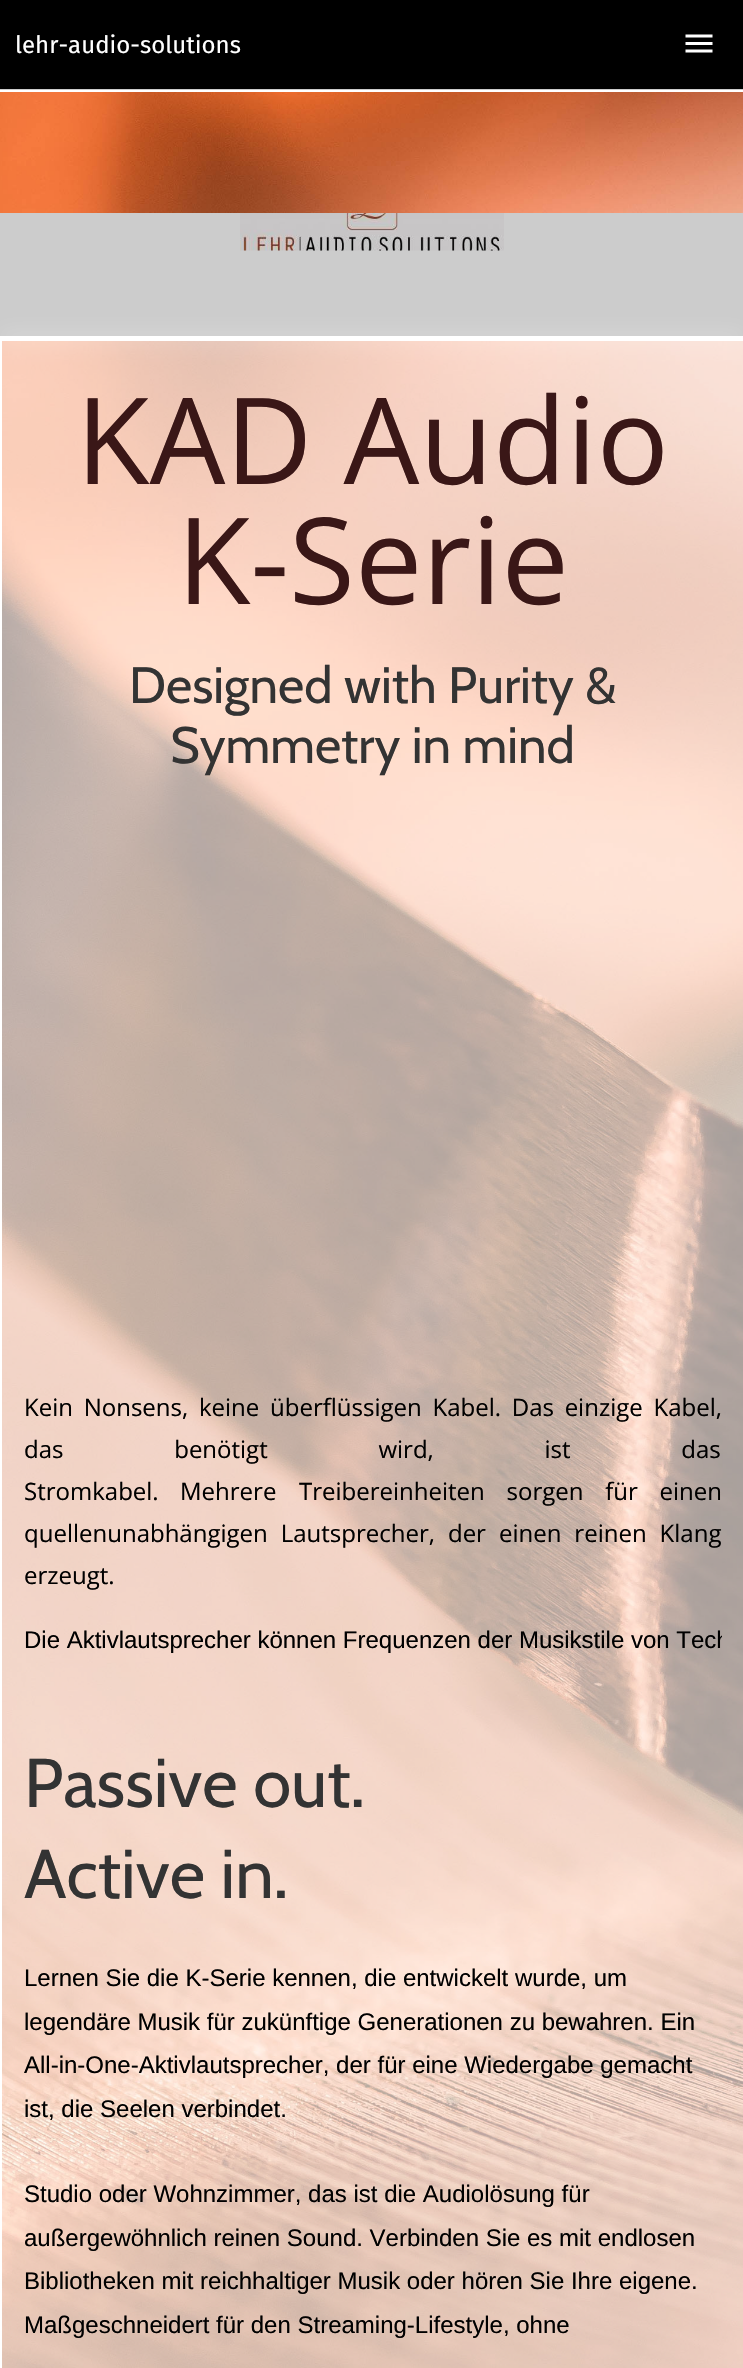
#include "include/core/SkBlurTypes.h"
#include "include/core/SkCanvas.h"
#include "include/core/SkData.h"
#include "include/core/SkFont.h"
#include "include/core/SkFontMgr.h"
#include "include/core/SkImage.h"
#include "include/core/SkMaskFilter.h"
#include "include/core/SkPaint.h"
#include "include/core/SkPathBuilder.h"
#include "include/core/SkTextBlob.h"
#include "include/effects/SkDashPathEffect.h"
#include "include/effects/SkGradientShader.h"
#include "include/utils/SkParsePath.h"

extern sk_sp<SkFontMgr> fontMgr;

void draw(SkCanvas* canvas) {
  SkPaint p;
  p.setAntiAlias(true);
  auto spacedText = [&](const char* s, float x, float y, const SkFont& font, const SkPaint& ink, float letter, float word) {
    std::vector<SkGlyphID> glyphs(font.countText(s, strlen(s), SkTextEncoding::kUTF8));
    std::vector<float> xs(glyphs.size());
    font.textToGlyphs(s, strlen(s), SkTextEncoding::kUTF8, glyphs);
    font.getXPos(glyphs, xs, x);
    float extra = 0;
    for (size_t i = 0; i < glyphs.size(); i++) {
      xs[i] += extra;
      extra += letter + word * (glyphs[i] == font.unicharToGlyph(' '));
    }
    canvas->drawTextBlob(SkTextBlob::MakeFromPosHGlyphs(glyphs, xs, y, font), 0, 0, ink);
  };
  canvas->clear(SK_ColorWHITE);
  canvas->drawImageRect(SkImages::DeferredFromEncodedData(SkData::MakeFromFileName("images/1.png")), SkRect::MakeLTRB(0, 92, 743, 2368), SkSamplingOptions());
  p.setColor(SK_ColorBLACK);
  canvas->drawRect(SkRect::MakeLTRB(0, 0, 743, 89), p);
  p.setColor(SkColorSetRGB(204, 204, 204));
  canvas->drawRect(SkRect::MakeLTRB(0, 89, 743, 90), p);
  canvas->drawImageRect(SkImages::DeferredFromEncodedData(SkData::MakeFromFileName("images/2.png")), SkRect::MakeLTRB(685, 34, 713, 53), SkSamplingOptions());
  canvas->drawRect(SkRect::MakeLTRB(0, 213, 743, 336), p);
  canvas->drawImageRect(SkImages::DeferredFromEncodedData(SkData::MakeFromFileName("images/3.png")), SkRect::MakeLTRB(240, 213, 504, 251), SkSamplingOptions());
  p.setColor(SK_ColorWHITE);
  p.setMaskFilter(SkMaskFilter::MakeBlur(kNormal_SkBlurStyle, 10.5f));
  canvas->drawRect(SkRect::MakeLTRB(0, 336, 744, 339), p);
  p.setMaskFilter(nullptr);
  canvas->drawRect(SkRect::MakeLTRB(0, 336, 743, 341), p);
  p.setColor(SkColorSetARGB(153, 255, 255, 255));
  canvas->drawRect(SkRect::MakeLTRB(2, 341, 743, 2368), p);
  p.setColor(SK_ColorWHITE);
  canvas->drawRect(SkRect::MakeLTRB(0, 339, 2, 2368), p);
  SkFont font1(fontMgr->matchFamilyStyle("Fira Sans", SkFontStyle::Normal()), 24);
  font1.setSubpixel(true);
  canvas->drawString("lehr-audio-solutions", 15, 53, font1, p);
  SkFont font2(fontMgr->matchFamilyStyle("Open Sans", SkFontStyle::Normal()), 120);
  font2.setSubpixel(true);
  p.setColor(SkColorSetRGB(58, 23, 23));
  canvas->drawString("KAD Audio", 76, 484, font2, p);
  canvas->drawString("K-Serie", 177, 604, font2, p);
  SkFont font3(fontMgr->matchFamilyStyle("Cabin", SkFontStyle::Normal()), 51);
  font3.setSubpixel(true);
  p.setColor(SkColorSetRGB(51, 51, 51));
  canvas->drawString("Designed with Purity &", 129, 703, font3, p);
  canvas->drawString("Symmetry in mind", 170, 763, font3, p);
  SkFont font4(fontMgr->matchFamilyStyle("Open Sans", SkFontStyle::Normal()), 24);
  font4.setSubpixel(true);
  p.setColor(SK_ColorBLACK);
  spacedText("Kein Nonsens, keine überflüssigen Kabel. Das einzige Kabel,", 24, 1416, font4, p, 0, 4.5f);
  spacedText("das benötigt wird, ist das", 24, 1458, font4, p, 0, 104.5f);
  canvas->drawString("Stromkabel.", 24, 1500, font4, p);
  canvas->drawString("Mehrere", 180, 1500, font4, p);
  spacedText("Treibereinheiten sorgen für einen", 299, 1500, font4, p, 0, 15.5f);
  spacedText("quellenunabhängigen Lautsprecher, der einen reinen Klang", 24, 1542, font4, p, 0, 6.75f);
  canvas->drawString("erzeugt.", 24, 1584, font4, p);
  canvas->save();
  canvas->clipRect(SkRect::MakeLTRB(24, 1371, 722, 1701));
  SkFont font5(fontMgr->matchFamilyStyle("Liberation Sans", SkFontStyle::Normal()), 24);
  font5.setSubpixel(true);
  canvas->drawString("Die Aktivlautsprecher können Frequenzen der Musikstile von Tech", 24, 1648, font5, p);
  canvas->restore();
  SkFont font6(fontMgr->matchFamilyStyle("Cabin", SkFontStyle::Normal()), 69);
  font6.setSubpixel(true);
  p.setColor(SkColorSetRGB(51, 51, 51));
  canvas->drawString("Passive out.", 24, 1807, font6, p);
  canvas->drawString("Active in.", 24, 1898, font6, p);
  p.setColor(SK_ColorBLACK);
  canvas->drawString("Lernen Sie die K-Serie kennen, die entwickelt wurde, um", 24, 1986, font5, p);
  canvas->drawString("legendäre Musik für zukünftige Generationen zu bewahren. Ein", 24, 2030, font5, p);
  canvas->drawString("All-in-One-Aktivlautsprecher, der für eine Wiedergabe gemacht", 24, 2073, font5, p);
  canvas->drawString("ist, die Seelen verbindet.", 24, 2117, font5, p);
  canvas->drawString("Studio oder Wohnzimmer, das ist die Audiolösung für", 24, 2202, font5, p);
  canvas->drawString("außergewöhnlich reinen Sound. Verbinden Sie es mit endlosen", 24, 2246, font5, p);
  canvas->drawString("Bibliotheken mit reichhaltiger Musik oder hören Sie Ihre eigene.", 24, 2289, font5, p);
  canvas->drawString("Maßgeschneidert für den Streaming-Lifestyle, ohne", 24, 2333, font5, p);
}
